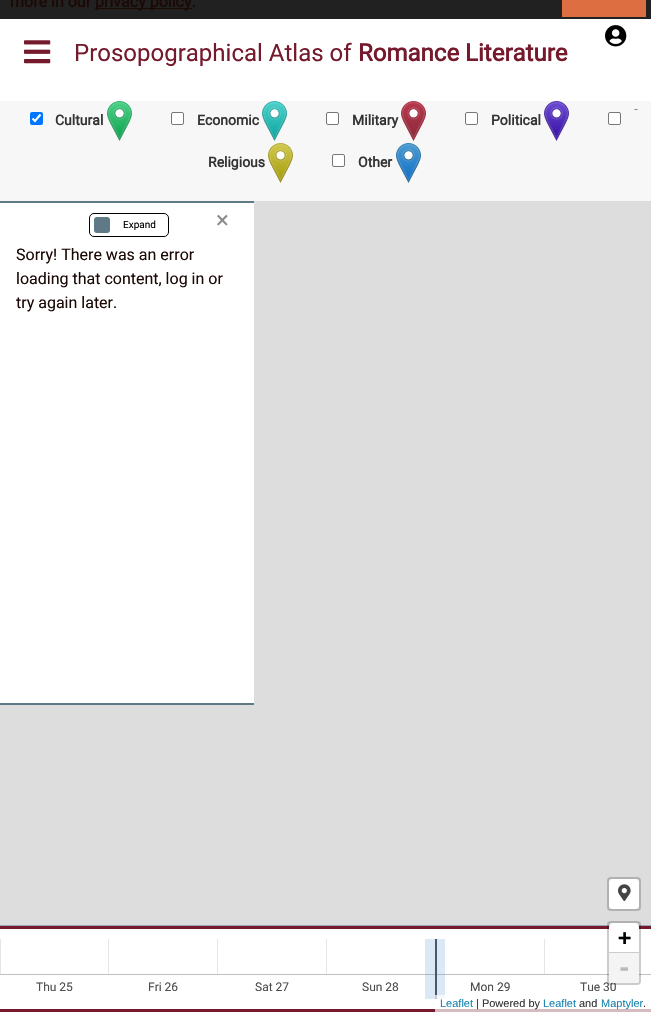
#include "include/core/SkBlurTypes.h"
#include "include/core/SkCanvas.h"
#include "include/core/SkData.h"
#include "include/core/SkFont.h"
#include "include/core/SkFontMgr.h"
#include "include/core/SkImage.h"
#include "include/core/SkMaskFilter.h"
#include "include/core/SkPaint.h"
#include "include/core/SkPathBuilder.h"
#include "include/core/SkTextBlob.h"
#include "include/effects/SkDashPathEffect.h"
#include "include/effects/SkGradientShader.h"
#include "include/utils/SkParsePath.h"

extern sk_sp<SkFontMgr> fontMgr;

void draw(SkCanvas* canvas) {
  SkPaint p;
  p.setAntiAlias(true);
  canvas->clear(SK_ColorWHITE);
  p.setColor(SkColorSetRGB(33, 33, 33));
  canvas->drawRect(SkRect::MakeLTRB(0, 0, 651, 19), p);
  p.setColor(SkColorSetRGB(27, 9, 6));
  canvas->drawRect(SkRect::MakeLTRB(95, 8, 192, 9), p);
  p.setColor(SkColorSetRGB(221, 110, 66));
  canvas->drawRect(SkRect::MakeLTRB(562, 0, 646, 17), p);
  canvas->drawImageRect(SkImages::DeferredFromEncodedData(SkData::MakeFromFileName("images/1.png")), SkRect::MakeLTRB(24, 40, 51, 64), SkSamplingOptions());
  p.setColor(SkColorSetRGB(247, 247, 247));
  canvas->drawRect(SkRect::MakeLTRB(0, 101, 651, 201), p);
  canvas->drawImageRect(SkImages::DeferredFromEncodedData(SkData::MakeFromFileName("images/2.png")), SkRect::MakeLTRB(634, 109, 638, 110), SkSamplingOptions());
  p.setColor(SkColorSetRGB(0, 117, 255));
  canvas->drawRoundRect(SkRect::MakeLTRB(30, 112, 43, 125), 2, 2, p);
  p.setStyle(SkPaint::kStroke_Style);
  p.setStrokeWidth(2.1f);
  p.setColor(SK_ColorWHITE);
  canvas->drawPath(SkPathBuilder().moveTo(32.5f, 118.5f).lineTo(35, 121).lineTo(40.5f, 114.5f).detach(), p);
  canvas->drawImageRect(SkImages::DeferredFromEncodedData(SkData::MakeFromFileName("images/3.png")), SkRect::MakeLTRB(107, 101, 132, 141), SkSamplingOptions());
  p.setStyle(SkPaint::kFill_Style);
  canvas->drawRoundRect(SkRect::MakeLTRB(171.5f, 112.5f, 183.5f, 124.5f), 1.5f, 1.5f, p);
  p.setStyle(SkPaint::kStroke_Style);
  p.setStrokeWidth(1);
  p.setColor(SkColorSetRGB(118, 118, 118));
  canvas->drawRoundRect(SkRect::MakeLTRB(171.5f, 112.5f, 183.5f, 124.5f), 1.5f, 1.5f, p);
  canvas->drawImageRect(SkImages::DeferredFromEncodedData(SkData::MakeFromFileName("images/4.png")), SkRect::MakeLTRB(262, 101, 287, 141), SkSamplingOptions());
  p.setStyle(SkPaint::kFill_Style);
  p.setColor(SK_ColorWHITE);
  canvas->drawRoundRect(SkRect::MakeLTRB(326.5f, 112.5f, 338.5f, 124.5f), 1.5f, 1.5f, p);
  p.setStyle(SkPaint::kStroke_Style);
  p.setColor(SkColorSetRGB(118, 118, 118));
  canvas->drawRoundRect(SkRect::MakeLTRB(326.5f, 112.5f, 338.5f, 124.5f), 1.5f, 1.5f, p);
  canvas->drawImageRect(SkImages::DeferredFromEncodedData(SkData::MakeFromFileName("images/5.png")), SkRect::MakeLTRB(401, 101, 426, 141), SkSamplingOptions());
  p.setStyle(SkPaint::kFill_Style);
  p.setColor(SK_ColorWHITE);
  canvas->drawRoundRect(SkRect::MakeLTRB(465.5f, 112.5f, 477.5f, 124.5f), 1.5f, 1.5f, p);
  p.setStyle(SkPaint::kStroke_Style);
  p.setColor(SkColorSetRGB(118, 118, 118));
  canvas->drawRoundRect(SkRect::MakeLTRB(465.5f, 112.5f, 477.5f, 124.5f), 1.5f, 1.5f, p);
  canvas->drawImageRect(SkImages::DeferredFromEncodedData(SkData::MakeFromFileName("images/6.png")), SkRect::MakeLTRB(544, 101, 569, 141), SkSamplingOptions());
  p.setStyle(SkPaint::kFill_Style);
  p.setColor(SK_ColorWHITE);
  canvas->drawRoundRect(SkRect::MakeLTRB(608.5f, 112.5f, 620.5f, 124.5f), 1.5f, 1.5f, p);
  p.setStyle(SkPaint::kStroke_Style);
  p.setColor(SkColorSetRGB(118, 118, 118));
  canvas->drawRoundRect(SkRect::MakeLTRB(608.5f, 112.5f, 620.5f, 124.5f), 1.5f, 1.5f, p);
  canvas->drawImageRect(SkImages::DeferredFromEncodedData(SkData::MakeFromFileName("images/7.png")), SkRect::MakeLTRB(268, 143, 293, 183), SkSamplingOptions());
  p.setStyle(SkPaint::kFill_Style);
  p.setColor(SK_ColorWHITE);
  canvas->drawRoundRect(SkRect::MakeLTRB(332.5f, 154.5f, 344.5f, 166.5f), 1.5f, 1.5f, p);
  p.setStyle(SkPaint::kStroke_Style);
  p.setColor(SkColorSetRGB(118, 118, 118));
  canvas->drawRoundRect(SkRect::MakeLTRB(332.5f, 154.5f, 344.5f, 166.5f), 1.5f, 1.5f, p);
  canvas->drawImageRect(SkImages::DeferredFromEncodedData(SkData::MakeFromFileName("images/8.png")), SkRect::MakeLTRB(396, 143, 421, 183), SkSamplingOptions());
  p.setStyle(SkPaint::kFill_Style);
  p.setColor(SkColorSetRGB(221, 221, 221));
  canvas->drawRect(SkRect::MakeLTRB(0, 201, 651, 925), p);
  p.setColor(SkColorSetRGB(96, 121, 135));
  canvas->drawRect(SkRect::MakeLTRB(0, 201, 254, 203), p);
  canvas->drawRect(SkRect::MakeLTRB(0, 703, 254, 705), p);
  p.setColor(SK_ColorWHITE);
  canvas->drawRect(SkRect::MakeLTRB(0, 203, 254, 703), p);
  p.setStyle(SkPaint::kStroke_Style);
  p.setColor(SK_ColorBLACK);
  canvas->drawRoundRect(SkRect::MakeLTRB(89.5f, 213.5f, 168.5f, 236.5f), 4.5f, 4.5f, p);
  p.setStyle(SkPaint::kFill_Style);
  p.setColor(SkColorSetRGB(96, 121, 135));
  canvas->drawRoundRect(SkRect::MakeLTRB(94, 217, 110, 233), 3, 3, p);
  canvas->drawImageRect(SkImages::DeferredFromEncodedData(SkData::MakeFromFileName("images/9.png")), SkRect::MakeLTRB(605, 25, 627, 47), SkSamplingOptions());
  p.setStyle(SkPaint::kStroke_Style);
  p.setStrokeWidth(2);
  p.setColor(SkColorSetRGB(177, 177, 177));
  canvas->drawRoundRect(SkRect::MakeLTRB(608, 878, 640, 910), 3, 3, p);
  p.setStyle(SkPaint::kFill_Style);
  p.setColor(SK_ColorWHITE);
  canvas->drawRoundRect(SkRect::MakeLTRB(609, 879, 639, 909), 4, 4, p);
  canvas->drawImageRect(SkImages::DeferredFromEncodedData(SkData::MakeFromFileName("images/10.png")), SkRect::MakeLTRB(618, 884, 631, 902), SkSamplingOptions());
  p.setColor(SkColorSetRGB(117, 25, 44));
  canvas->drawRect(SkRect::MakeLTRB(0, 1009, 651, 1012), p);
  p.setColor(SkColorSetRGB(229, 229, 229));
  canvas->drawRect(SkRect::MakeLTRB(0, 939, 1, 974), p);
  canvas->drawRect(SkRect::MakeLTRB(108, 939, 109, 974), p);
  canvas->drawRect(SkRect::MakeLTRB(217, 939, 218, 974), p);
  canvas->drawRect(SkRect::MakeLTRB(326, 939, 327, 974), p);
  canvas->drawRect(SkRect::MakeLTRB(544, 939, 545, 974), p);
  canvas->save();
  canvas->clipRect(SkRect::MakeLTRB(0, 939, 651, 999));
  p.setStyle(SkPaint::kStroke_Style);
  p.setStrokeWidth(1);
  p.setColor(SkColorSetRGB(191, 191, 191));
  canvas->drawRect(SkRect::MakeLTRB(-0.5f, 938.5f, 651.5f, 974.5f), p);
  canvas->restore();
  p.setStyle(SkPaint::kFill_Style);
  p.setColor(SkColorSetRGB(61, 61, 61));
  canvas->drawRect(SkRect::MakeLTRB(435, 939, 437, 999), p);
  p.setColor(SkColorSetARGB(64, 111, 163, 219));
  canvas->drawRect(SkRect::MakeLTRB(425, 939, 445, 999), p);
  p.setColor(SkColorSetARGB(179, 255, 255, 255));
  canvas->drawRect(SkRect::MakeLTRB(435, 995, 651, 1012), p);
  p.setColor(SkColorSetRGB(151, 167, 179));
  canvas->drawRect(SkRect::MakeLTRB(0, 925, 651, 926), p);
  p.setColor(SkColorSetRGB(117, 25, 44));
  canvas->drawRect(SkRect::MakeLTRB(0, 926, 651, 929), p);
  SkFont font1(fontMgr->matchFamilyStyle("Roboto", SkFontStyle::Bold()), 16);
  font1.setSubpixel(true);
  p.setColor(SkColorSetRGB(27, 9, 6));
  canvas->drawString("more in our", 10, 7, font1, p);
  canvas->drawString("privacy policy.", 95, 7, font1, p);
  SkFont font2(fontMgr->matchFamilyStyle("Roboto", SkFontStyle::Normal()), 24);
  font2.setSubpixel(true);
  p.setColor(SkColorSetRGB(117, 25, 44));
  canvas->drawString("Prosopographical Atlas of", 74, 61, font2, p);
  SkFont font3(fontMgr->matchFamilyStyle("Roboto", SkFontStyle::Bold()), 24);
  font3.setSubpixel(true);
  canvas->drawString("Romance Literature", 358, 61, font3, p);
  SkFont font4(fontMgr->matchFamilyStyle("Roboto", SkFontStyle::Bold()), 14);
  font4.setSubpixel(true);
  p.setColor(SkColorSetRGB(51, 51, 51));
  canvas->drawString("Cultural", 55, 125, font4, p);
  canvas->drawString("Economic", 197, 125, font4, p);
  canvas->drawString("Military", 352, 125, font4, p);
  canvas->drawString("Political", 491, 125, font4, p);
  canvas->drawString("Religious", 208, 167, font4, p);
  canvas->drawString("Other", 358, 167, font4, p);
  SkFont font5(fontMgr->matchFamilyStyle("Roboto", SkFontStyle::Normal()), 10);
  font5.setSubpixel(true);
  p.setColor(SK_ColorBLACK);
  canvas->drawString("Expand", 123, 228, font5, p);
  p.setColor(SkColorSetRGB(138, 138, 138));
  canvas->drawString("×", 216, 228, font2, p);
  SkFont font6(fontMgr->matchFamilyStyle("Roboto", SkFontStyle::Normal()), 16);
  font6.setSubpixel(true);
  p.setColor(SkColorSetRGB(27, 9, 6));
  canvas->drawString("Sorry! There was an error", 16, 260, font6, p);
  canvas->drawString("loading that content, log in or", 16, 284, font6, p);
  canvas->drawString("try again later.", 16, 308, font6, p);
  SkFont font7(fontMgr->matchFamilyStyle("Liberation Sans", SkFontStyle::Normal()), 11);
  font7.setSubpixel(true);
  p.setColor(SkColorSetRGB(24, 132, 175));
  canvas->drawString("Leaflet", 440, 1007, font7, p);
  p.setColor(SkColorSetRGB(51, 51, 51));
  canvas->drawString("| Powered by", 476, 1007, font7, p);
  p.setColor(SkColorSetRGB(24, 132, 175));
  canvas->drawString("Leaflet", 543, 1007, font7, p);
  p.setColor(SkColorSetRGB(51, 51, 51));
  canvas->drawString("and", 579, 1007, font7, p);
  p.setColor(SkColorSetRGB(24, 132, 175));
  canvas->drawString("Maptyler", 601, 1007, font7, p);
  p.setColor(SkColorSetRGB(51, 51, 51));
  canvas->drawString(".", 643, 1007, font7, p);
  SkFont font8(fontMgr->matchFamilyStyle("Roboto", SkFontStyle::Normal()), 12);
  font8.setSubpixel(true);
  p.setColor(SkColorSetRGB(77, 77, 77));
  canvas->drawString("Thu 25", 36, 991, font8, p);
  canvas->drawString("Fri 26", 148, 991, font8, p);
  canvas->drawString("Sat 27", 255, 991, font8, p);
  canvas->drawString("Sun 28", 362, 991, font8, p);
  canvas->drawString("Mon 29", 470, 991, font8, p);
  canvas->drawString("Tue 30", 580, 991, font8, p);
  p.setStyle(SkPaint::kStroke_Style);
  p.setStrokeWidth(2);
  p.setColor(SkColorSetARGB(51, 0, 0, 0));
  canvas->drawRoundRect(SkRect::MakeLTRB(608, 922, 640, 984), 3, 3, p);
  p.setStyle(SkPaint::kFill_Style);
  p.setColor(SkColorSetRGB(244, 244, 244));
  canvas->drawPath(SkPathBuilder().moveTo(609, 953).lineTo(639, 953).lineTo(639, 979).cubicTo(639, 981, 637, 983, 635, 983).lineTo(613, 983).cubicTo(611, 983, 609, 981, 609, 979).close().detach(), p);
  SkFont font9(fontMgr->matchFamilyStyle("DejaVu Sans Mono", SkFontStyle::Bold()), 24);
  font9.setSubpixel(true);
  p.setColor(SkColorSetRGB(187, 187, 187));
  canvas->drawString("-", 617, 976, font9, p);
  p.setColor(SK_ColorWHITE);
  canvas->drawPath(SkPathBuilder().moveTo(613, 923).lineTo(635, 923).cubicTo(637, 923, 639, 925, 639, 927).lineTo(639, 953).lineTo(609, 953).lineTo(609, 927).cubicTo(609, 925, 611, 923, 613, 923).close().detach(), p);
  SkFont font10(fontMgr->matchFamilyStyle("DejaVu Sans Mono", SkFontStyle::Bold()), 22);
  font10.setSubpixel(true);
  p.setColor(SK_ColorBLACK);
  canvas->drawString("+", 618, 945, font10, p);
  p.setColor(SkColorSetRGB(204, 204, 204));
  canvas->drawRect(SkRect::MakeLTRB(609, 952, 639, 953), p);
}
